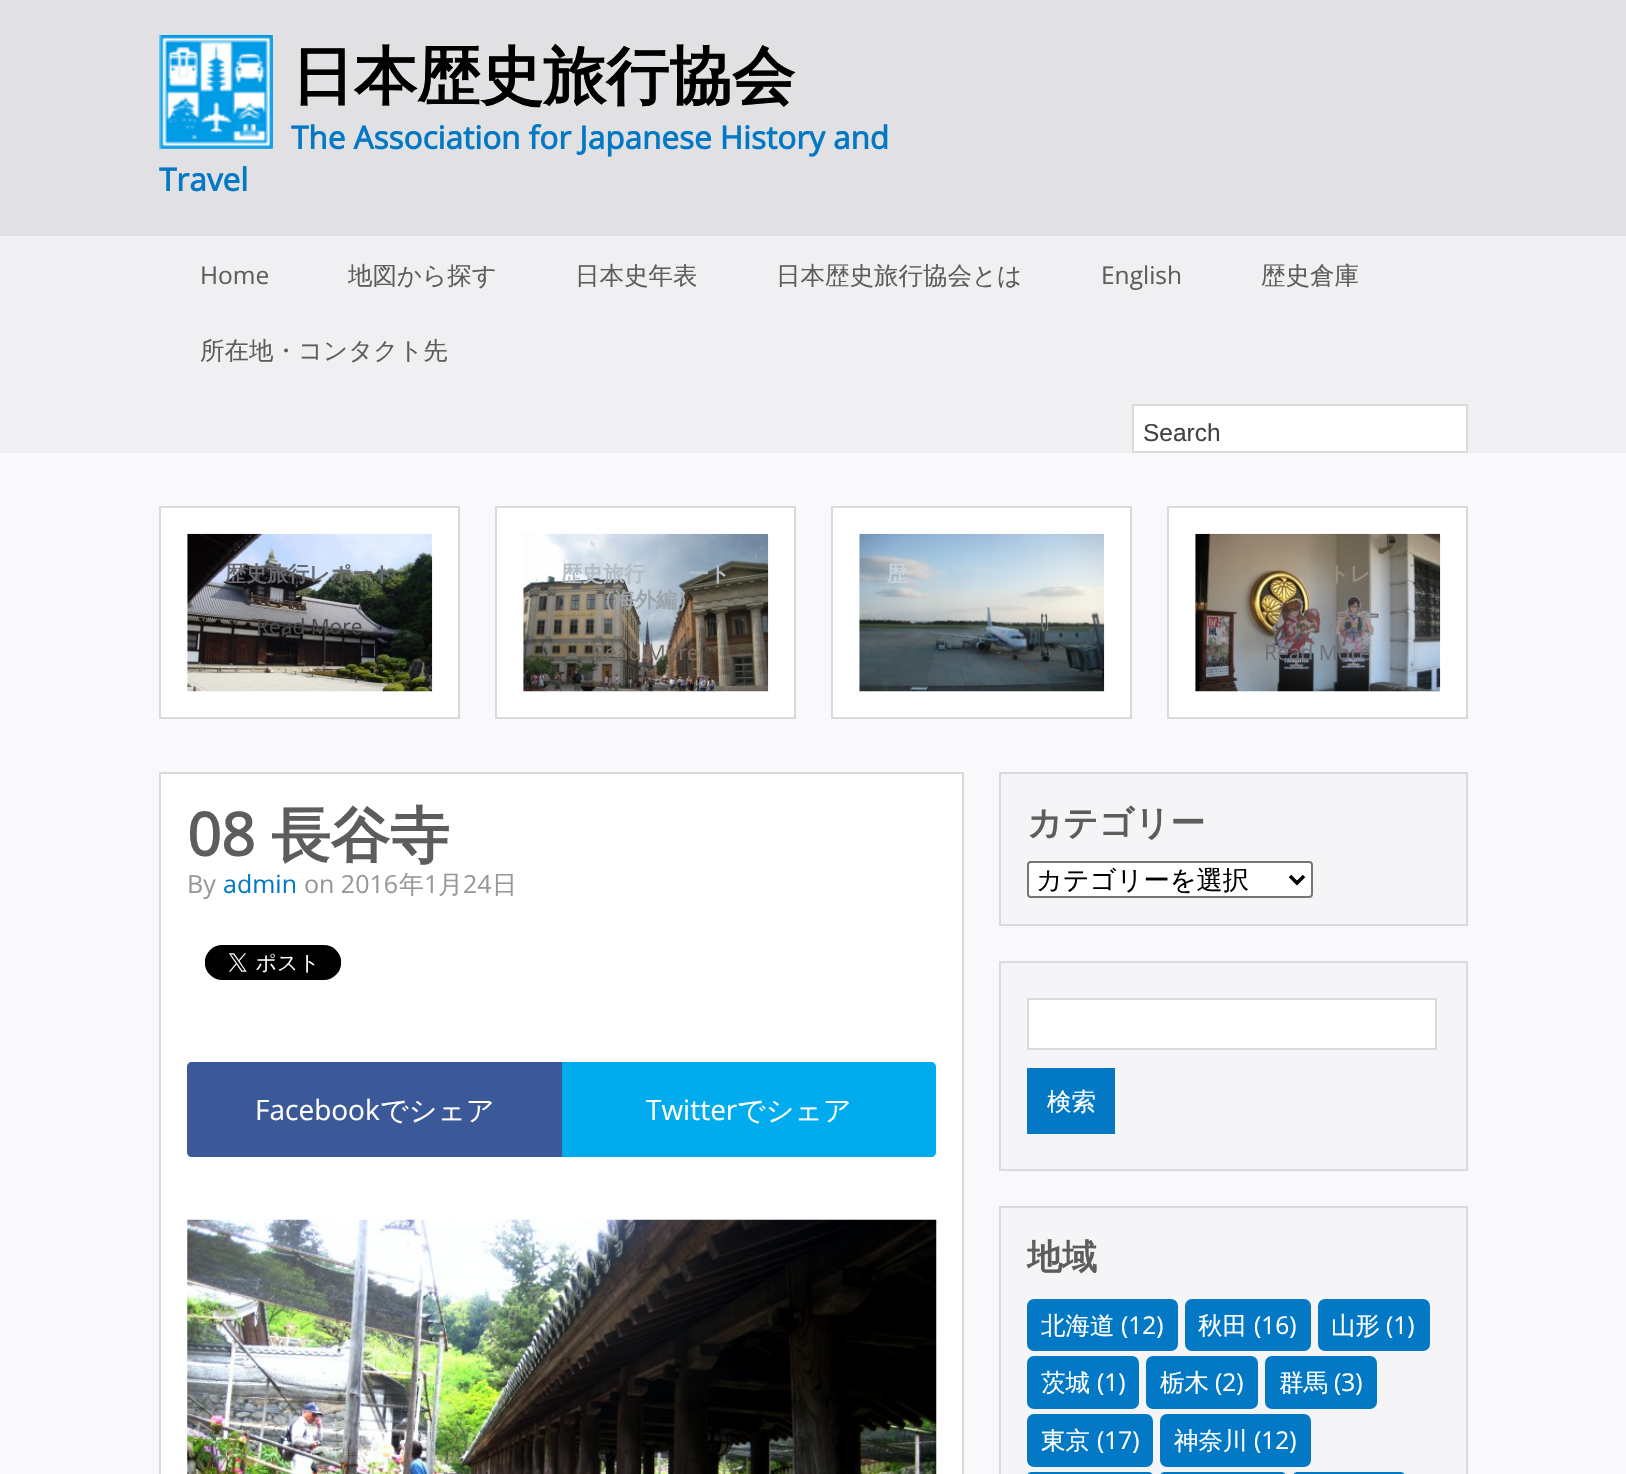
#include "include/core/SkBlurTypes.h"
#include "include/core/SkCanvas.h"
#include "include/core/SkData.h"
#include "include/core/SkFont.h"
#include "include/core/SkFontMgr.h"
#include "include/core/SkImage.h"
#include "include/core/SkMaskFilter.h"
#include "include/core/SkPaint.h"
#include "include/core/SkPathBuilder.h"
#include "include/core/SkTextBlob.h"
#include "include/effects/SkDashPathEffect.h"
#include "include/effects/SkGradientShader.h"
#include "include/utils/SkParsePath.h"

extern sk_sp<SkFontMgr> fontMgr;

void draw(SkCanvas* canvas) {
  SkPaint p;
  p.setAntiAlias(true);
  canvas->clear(SkColorSetRGB(249, 248, 251));
  p.setColor(SkColorSetRGB(225, 224, 227));
  canvas->drawRect(SkRect::MakeLTRB(0, 0, 1626, 235), p);
  p.setColor(SkColorSetRGB(223, 221, 224));
  canvas->drawRect(SkRect::MakeLTRB(0, 235, 1626, 236), p);
  canvas->drawImageRect(SkImages::DeferredFromEncodedData(SkData::MakeFromFileName("images/1.png")), SkRect::MakeLTRB(159, 35, 273, 149), SkSamplingOptions());
  p.setColor(SkColorSetRGB(240, 239, 242));
  canvas->drawRect(SkRect::MakeLTRB(0, 236, 1626, 453), p);
  p.setColor(SK_ColorWHITE);
  canvas->drawRect(SkRect::MakeLTRB(1133, 405, 1467, 452), p);
  p.setStyle(SkPaint::kStroke_Style);
  p.setStrokeWidth(2);
  p.setColor(SkColorSetRGB(219, 217, 220));
  canvas->drawRect(SkRect::MakeLTRB(1133, 405, 1467, 452), p);
  p.setStyle(SkPaint::kFill_Style);
  p.setColor(SK_ColorWHITE);
  canvas->drawRect(SkRect::MakeLTRB(160, 507, 459, 718), p);
  p.setStyle(SkPaint::kStroke_Style);
  p.setColor(SkColorSetRGB(219, 217, 220));
  canvas->drawRect(SkRect::MakeLTRB(160, 507, 459, 718), p);
  canvas->drawImageRect(SkImages::DeferredFromEncodedData(SkData::MakeFromFileName("images/2.png")), SkRect::MakeLTRB(187, 533, 433, 692), SkSamplingOptions());
  p.setStyle(SkPaint::kFill_Style);
  p.setColor(SK_ColorWHITE);
  canvas->drawRect(SkRect::MakeLTRB(496, 507, 795, 718), p);
  p.setStyle(SkPaint::kStroke_Style);
  p.setColor(SkColorSetRGB(219, 217, 220));
  canvas->drawRect(SkRect::MakeLTRB(496, 507, 795, 718), p);
  canvas->drawImageRect(SkImages::DeferredFromEncodedData(SkData::MakeFromFileName("images/3.png")), SkRect::MakeLTRB(523, 533, 769, 692), SkSamplingOptions());
  p.setStyle(SkPaint::kFill_Style);
  p.setColor(SK_ColorWHITE);
  canvas->drawRect(SkRect::MakeLTRB(832, 507, 1131, 718), p);
  p.setStyle(SkPaint::kStroke_Style);
  p.setColor(SkColorSetRGB(219, 217, 220));
  canvas->drawRect(SkRect::MakeLTRB(832, 507, 1131, 718), p);
  canvas->drawImageRect(SkImages::DeferredFromEncodedData(SkData::MakeFromFileName("images/4.png")), SkRect::MakeLTRB(859, 533, 1105, 692), SkSamplingOptions());
  p.setStyle(SkPaint::kFill_Style);
  p.setColor(SK_ColorWHITE);
  canvas->drawRect(SkRect::MakeLTRB(1168, 507, 1467, 718), p);
  p.setStyle(SkPaint::kStroke_Style);
  p.setColor(SkColorSetRGB(219, 217, 220));
  canvas->drawRect(SkRect::MakeLTRB(1168, 507, 1467, 718), p);
  canvas->drawImageRect(SkImages::DeferredFromEncodedData(SkData::MakeFromFileName("images/5.png")), SkRect::MakeLTRB(1195, 533, 1441, 692), SkSamplingOptions());
  p.setStyle(SkPaint::kFill_Style);
  p.setColor(SK_ColorWHITE);
  canvas->drawRect(SkRect::MakeLTRB(160, 773, 963, 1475), p);
  p.setStyle(SkPaint::kStroke_Style);
  p.setColor(SkColorSetRGB(219, 217, 220));
  canvas->drawRect(SkRect::MakeLTRB(160, 773, 963, 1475), p);
  canvas->drawImageRect(SkImages::DeferredFromEncodedData(SkData::MakeFromFileName("images/6.png")), SkRect::MakeLTRB(204, 945, 342, 980), SkSamplingOptions());
  p.setStyle(SkPaint::kFill_Style);
  p.setColor(SkColorSetRGB(59, 89, 152));
  canvas->drawPath(SkPathBuilder().moveTo(192, 1062).lineTo(562, 1062).lineTo(562, 1157).lineTo(192, 1157).cubicTo(189, 1157, 187, 1155, 187, 1152).lineTo(187, 1067).cubicTo(187, 1064, 189, 1062, 192, 1062).close().detach(), p);
  p.setColor(SkColorSetRGB(0, 172, 238));
  canvas->drawPath(SkPathBuilder().moveTo(562, 1062).lineTo(931, 1062).cubicTo(934, 1062, 936, 1064, 936, 1067).lineTo(936, 1152).cubicTo(936, 1155, 934, 1157, 931, 1157).lineTo(562, 1157).close().detach(), p);
  canvas->drawImageRect(SkImages::DeferredFromEncodedData(SkData::MakeFromFileName("images/7.png")), SkRect::MakeLTRB(187, 1219, 937, 1474), SkSamplingOptions());
  p.setColor(SkColorSetRGB(245, 244, 247));
  canvas->drawRect(SkRect::MakeLTRB(1000, 773, 1467, 925), p);
  p.setStyle(SkPaint::kStroke_Style);
  p.setColor(SkColorSetRGB(219, 217, 220));
  canvas->drawRect(SkRect::MakeLTRB(1000, 773, 1467, 925), p);
  p.setStyle(SkPaint::kFill_Style);
  p.setColor(SK_ColorWHITE);
  canvas->drawRoundRect(SkRect::MakeLTRB(1028, 862, 1312, 897), 3, 3, p);
  p.setStyle(SkPaint::kStroke_Style);
  p.setColor(SkColorSetRGB(118, 118, 118));
  canvas->drawRoundRect(SkRect::MakeLTRB(1028, 862, 1312, 897), 3, 3, p);
  p.setStrokeWidth(3.5f);
  p.setColor(SK_ColorBLACK);
  canvas->drawPath(SkPathBuilder().moveTo(1290, 876).lineTo(1297, 883).lineTo(1304, 876).detach(), p);
  p.setStyle(SkPaint::kFill_Style);
  p.setColor(SkColorSetRGB(245, 244, 247));
  canvas->drawRect(SkRect::MakeLTRB(1000, 962, 1467, 1170), p);
  p.setStyle(SkPaint::kStroke_Style);
  p.setStrokeWidth(2);
  p.setColor(SkColorSetRGB(219, 217, 220));
  canvas->drawRect(SkRect::MakeLTRB(1000, 962, 1467, 1170), p);
  p.setStyle(SkPaint::kFill_Style);
  p.setColor(SK_ColorWHITE);
  canvas->drawRect(SkRect::MakeLTRB(1028, 999, 1436, 1049), p);
  p.setStyle(SkPaint::kStroke_Style);
  p.setColor(SkColorSetRGB(219, 217, 220));
  canvas->drawRect(SkRect::MakeLTRB(1028, 999, 1436, 1049), p);
  p.setStyle(SkPaint::kFill_Style);
  p.setColor(SkColorSetRGB(3, 121, 198));
  canvas->drawRect(SkRect::MakeLTRB(1027, 1068, 1115, 1134), p);
  p.setColor(SkColorSetRGB(245, 244, 247));
  canvas->drawRect(SkRect::MakeLTRB(1000, 1207, 1467, 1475), p);
  p.setStyle(SkPaint::kStroke_Style);
  p.setColor(SkColorSetRGB(219, 217, 220));
  canvas->drawRect(SkRect::MakeLTRB(1000, 1207, 1467, 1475), p);
  p.setStyle(SkPaint::kFill_Style);
  p.setColor(SkColorSetRGB(3, 121, 198));
  canvas->drawRoundRect(SkRect::MakeLTRB(1027, 1299, 1178, 1351), 7, 7, p);
  canvas->drawRoundRect(SkRect::MakeLTRB(1185, 1299, 1311, 1351), 7, 7, p);
  canvas->drawRoundRect(SkRect::MakeLTRB(1318, 1299, 1430, 1351), 7, 7, p);
  canvas->drawRoundRect(SkRect::MakeLTRB(1027, 1356, 1139, 1409), 7, 7, p);
  canvas->drawRoundRect(SkRect::MakeLTRB(1146, 1356, 1258, 1409), 7, 7, p);
  canvas->drawRoundRect(SkRect::MakeLTRB(1265, 1356, 1377, 1409), 7, 7, p);
  canvas->drawRoundRect(SkRect::MakeLTRB(1027, 1414, 1153, 1467), 7, 7, p);
  canvas->drawRoundRect(SkRect::MakeLTRB(1160, 1414, 1311, 1467), 7, 7, p);
  canvas->drawRoundRect(SkRect::MakeLTRB(1027, 1472, 1153, 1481), 7, 7, p);
  canvas->drawRoundRect(SkRect::MakeLTRB(1160, 1472, 1286, 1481), 7, 7, p);
  canvas->drawRoundRect(SkRect::MakeLTRB(1293, 1472, 1405, 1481), 7, 7, p);
  SkFont font1(fontMgr->matchFamilyStyle("WenQuanYi Zen Hei", SkFontStyle::Bold()), 63);
  font1.setSubpixel(true);
  p.setColor(SK_ColorBLACK);
  canvas->drawString("日本歴史旅行協会", 291, 98, font1, p);
  SkFont font2(fontMgr->matchFamilyStyle("Open Sans", SkFontStyle::Bold()), 31.5f);
  font2.setSubpixel(true);
  p.setColor(SkColorSetRGB(3, 121, 198));
  canvas->drawString("The Association for Japanese History and", 291, 149, font2, p);
  canvas->drawString("Travel", 159, 191, font2, p);
  SkFont font3(fontMgr->matchFamilyStyle("Open Sans", SkFontStyle::Normal()), 24.5f);
  font3.setSubpixel(true);
  p.setColor(SkColorSetRGB(93, 93, 94));
  canvas->drawString("Home", 200, 284, font3, p);
  SkFont font4(fontMgr->matchFamilyStyle("WenQuanYi Zen Hei", SkFontStyle(500, SkFontStyle::kNormal_Width, SkFontStyle::kUpright_Slant)), 24.5f);
  font4.setSubpixel(true);
  canvas->drawString("地図から探す", 348, 284, font4, p);
  canvas->drawString("日本史年表", 575, 284, font4, p);
  canvas->drawString("日本歴史旅行協会とは", 776, 284, font4, p);
  canvas->drawString("English", 1101, 284, font3, p);
  canvas->drawString("歴史倉庫", 1261, 284, font4, p);
  canvas->drawString("所在地・コンタクト先", 200, 359, font4, p);
  SkFont font5(fontMgr->matchFamilyStyle("Liberation Sans", SkFontStyle::Normal()), 24.5f);
  font5.setSubpixel(true);
  p.setColor(SkColorSetRGB(66, 66, 66));
  canvas->drawString("Search", 1143, 441, font5, p);
  SkFont font6(fontMgr->matchFamilyStyle("WenQuanYi Zen Hei", SkFontStyle::Bold()), 21);
  font6.setSubpixel(true);
  p.setColor(SkColorSetRGB(104, 108, 114));
  canvas->drawString("歴史旅行レポート", 225, 581, font6, p);
  SkFont font7(fontMgr->matchFamilyStyle("Open Sans", SkFontStyle::Normal()), 21);
  font7.setSubpixel(true);
  p.setColor(SkColorSetRGB(75, 74, 75));
  canvas->drawString("Read More", 256, 634, font7, p);
  p.setColor(SkColorSetRGB(178, 188, 196));
  canvas->drawString("歴史旅行", 561, 581, font6, p);
  canvas->drawString("ート", 688, 581, font6, p);
  p.setColor(SkColorSetRGB(156, 164, 169));
  canvas->drawString("（海外編）", 593, 607, font6, p);
  p.setColor(SkColorSetRGB(119, 110, 100));
  canvas->drawString("Read More", 592, 660, font7, p);
  p.setColor(SkColorSetRGB(198, 213, 221));
  canvas->drawString("歴", 887, 581, font6, p);
  p.setColor(SkColorSetRGB(150, 140, 123));
  canvas->drawString("トレ", 1328, 581, font6, p);
  p.setColor(SkColorSetRGB(110, 112, 119));
  canvas->drawString("Read More", 1264, 660, font7, p);
  SkFont font8(fontMgr->matchFamilyStyle("Open Sans", SkFontStyle::Bold()), 59.5f);
  font8.setSubpixel(true);
  p.setColor(SkColorSetRGB(93, 93, 94));
  canvas->drawString("08", 187, 856, font8, p);
  SkFont font9(fontMgr->matchFamilyStyle("WenQuanYi Zen Hei", SkFontStyle::Bold()), 59.5f);
  font9.setSubpixel(true);
  canvas->drawString("長谷寺", 271, 856, font9, p);
  SkFont font10(fontMgr->matchFamilyStyle("Open Sans", SkFontStyle::Normal()), 25);
  font10.setSubpixel(true);
  p.setColor(SkColorSetRGB(152, 151, 153));
  canvas->drawString("By", 187, 893, font10, p);
  p.setColor(SkColorSetRGB(3, 121, 198));
  canvas->drawString("admin", 223, 893, font10, p);
  p.setColor(SkColorSetRGB(152, 151, 153));
  canvas->drawString("on 2016", 304, 893, font10, p);
  SkFont font11(fontMgr->matchFamilyStyle("WenQuanYi Zen Hei", SkFontStyle(500, SkFontStyle::kNormal_Width, SkFontStyle::kUpright_Slant)), 25);
  font11.setSubpixel(true);
  canvas->drawString("年", 399, 893, font11, p);
  canvas->drawString("1", 424, 893, font10, p);
  canvas->drawString("月", 438, 893, font11, p);
  canvas->drawString("24", 463, 893, font10, p);
  canvas->drawString("日", 492, 893, font11, p);
  SkFont font12(fontMgr->matchFamilyStyle("Open Sans", SkFontStyle::Normal()), 28);
  font12.setSubpixel(true);
  p.setColor(SK_ColorWHITE);
  canvas->drawString("Facebook", 255, 1120, font12, p);
  SkFont font13(fontMgr->matchFamilyStyle("WenQuanYi Zen Hei", SkFontStyle(500, SkFontStyle::kNormal_Width, SkFontStyle::kUpright_Slant)), 28);
  font13.setSubpixel(true);
  canvas->drawString("でシェア", 380, 1120, font13, p);
  canvas->drawString("Twitter", 646, 1120, font12, p);
  canvas->drawString("でシェア", 737, 1120, font13, p);
  SkFont font14(fontMgr->matchFamilyStyle("WenQuanYi Zen Hei", SkFontStyle::Bold()), 35);
  font14.setSubpixel(true);
  p.setColor(SkColorSetRGB(93, 93, 94));
  canvas->drawString("カテゴリー", 1027, 835, font14, p);
  SkFont font15(fontMgr->matchFamilyStyle("WenQuanYi Zen Hei", SkFontStyle(500, SkFontStyle::kNormal_Width, SkFontStyle::kUpright_Slant)), 26.25f);
  font15.setSubpixel(true);
  p.setColor(SK_ColorBLACK);
  canvas->drawString("カテゴリーを選択", 1036, 889, font15, p);
  p.setColor(SK_ColorWHITE);
  canvas->drawString("検索", 1047, 1110, font4, p);
  p.setColor(SkColorSetRGB(93, 93, 94));
  canvas->drawString("地域", 1027, 1269, font14, p);
  p.setColor(SK_ColorWHITE);
  canvas->drawString("北海道", 1041, 1334, font4, p);
  canvas->drawString("(12)", 1121, 1334, font3, p);
  canvas->drawString("秋田", 1198, 1334, font4, p);
  canvas->drawString("(16)", 1254, 1334, font3, p);
  canvas->drawString("山形", 1331, 1334, font4, p);
  canvas->drawString("(1)", 1386, 1334, font3, p);
  canvas->drawString("茨城", 1041, 1391, font4, p);
  canvas->drawString("(1)", 1097, 1391, font3, p);
  canvas->drawString("栃木", 1160, 1391, font4, p);
  canvas->drawString("(2)", 1215, 1391, font3, p);
  canvas->drawString("群馬", 1279, 1391, font4, p);
  canvas->drawString("(3)", 1334, 1391, font3, p);
  canvas->drawString("東京", 1041, 1449, font4, p);
  canvas->drawString("(17)", 1097, 1449, font3, p);
  canvas->drawString("神奈川", 1174, 1449, font4, p);
  canvas->drawString("(12)", 1254, 1449, font3, p);
}
